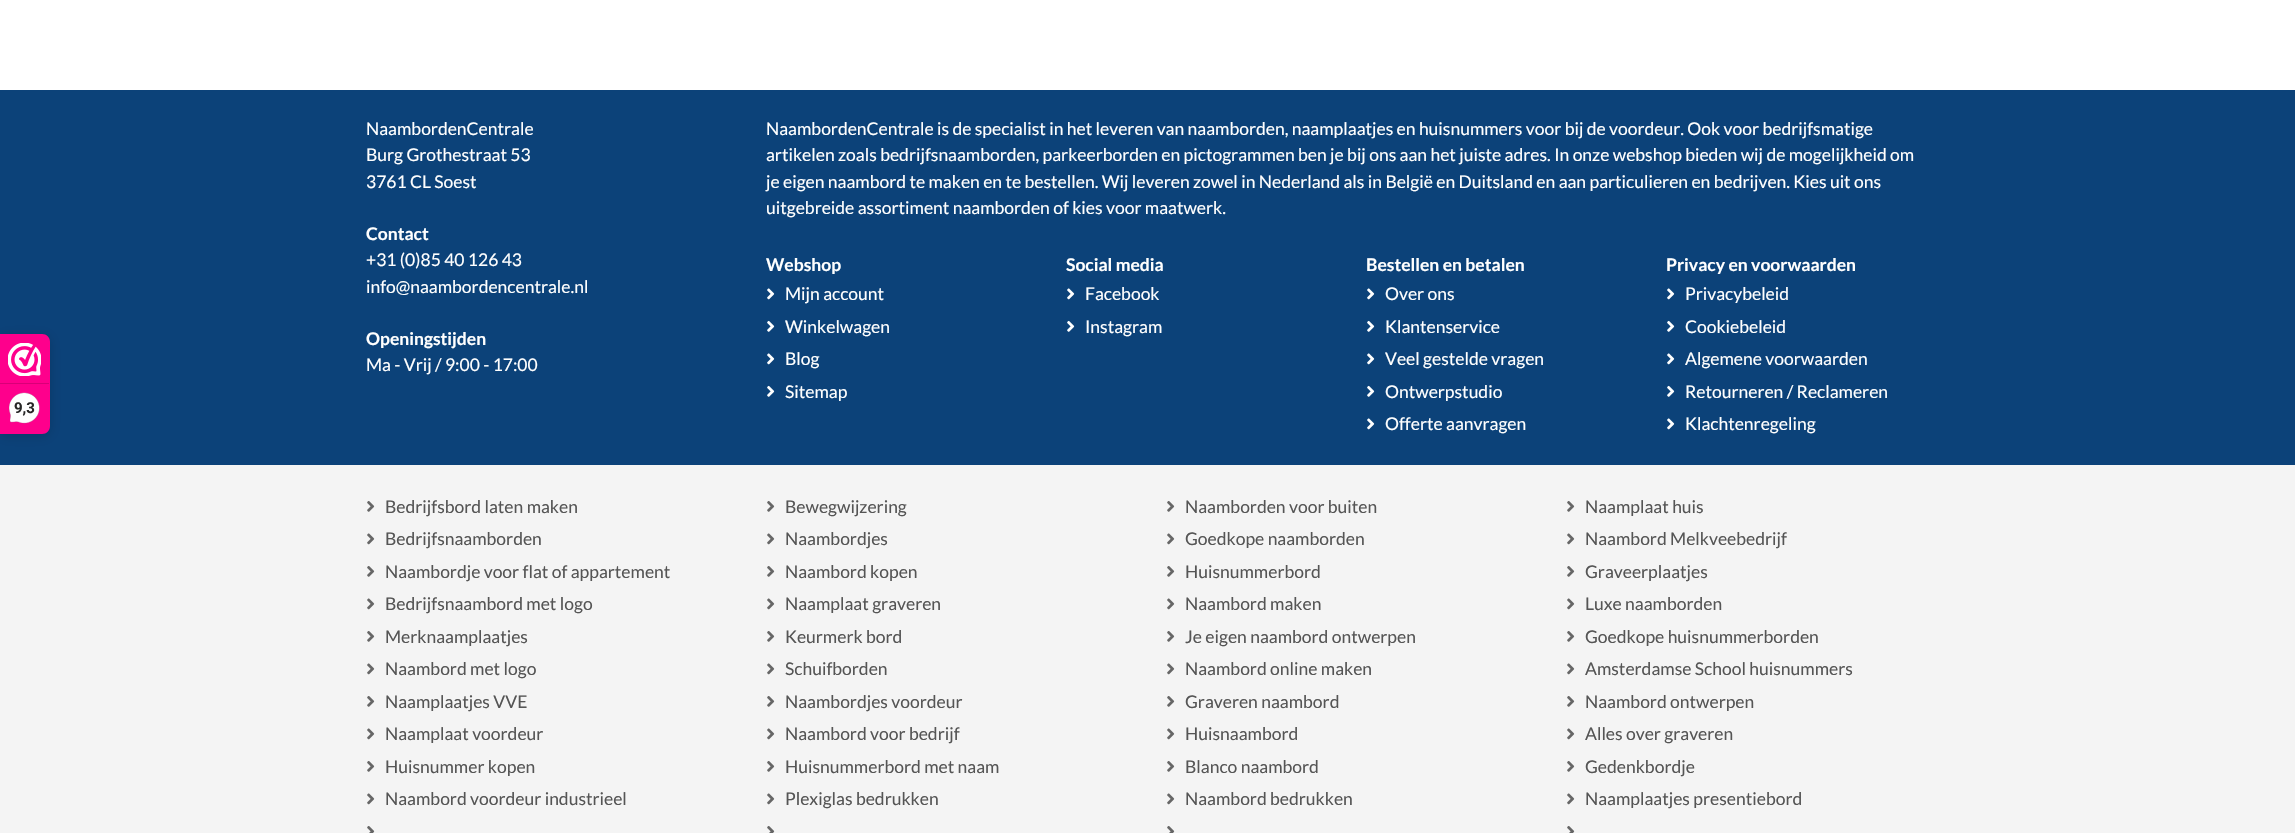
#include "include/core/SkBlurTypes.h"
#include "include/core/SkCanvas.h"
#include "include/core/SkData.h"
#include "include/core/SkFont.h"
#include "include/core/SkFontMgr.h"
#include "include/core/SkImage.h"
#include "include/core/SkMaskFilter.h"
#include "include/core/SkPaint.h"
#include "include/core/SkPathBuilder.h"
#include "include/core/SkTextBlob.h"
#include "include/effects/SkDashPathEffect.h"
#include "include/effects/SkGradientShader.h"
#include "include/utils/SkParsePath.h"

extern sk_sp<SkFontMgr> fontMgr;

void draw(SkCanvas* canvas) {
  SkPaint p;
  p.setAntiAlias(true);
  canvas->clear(SK_ColorWHITE);
  p.setColor(SkColorSetRGB(12, 66, 121));
  canvas->drawRect(SkRect::MakeLTRB(0, 90, 2295, 465), p);
  p.setColor(SkColorSetARGB(38, 0, 0, 0));
  p.setMaskFilter(SkMaskFilter::MakeBlur(kNormal_SkBlurStyle, 6));
  canvas->drawRoundRect(SkRect::MakeLTRB(0, 336, 50, 436), 8, 8, p);
  p.setMaskFilter(nullptr);
  p.setColor(SkColorSetRGB(254, 0, 140));
  canvas->drawPath(SkPathBuilder().moveTo(0, 334).lineTo(42, 334).cubicTo(46.5f, 334, 50, 337.5f, 50, 342).lineTo(50, 426).cubicTo(50, 430.5f, 46.5f, 434, 42, 434).lineTo(0, 434).close().detach(), p);
  canvas->drawImageRect(SkImages::DeferredFromEncodedData(SkData::MakeFromFileName("images/1.png")), SkRect::MakeLTRB(8, 343, 41, 376), SkSamplingOptions());
  p.setColor(SkColorSetRGB(216, 0, 119));
  canvas->drawRect(SkRect::MakeLTRB(0, 383, 49, 384), p);
  canvas->drawImageRect(SkImages::DeferredFromEncodedData(SkData::MakeFromFileName("images/2.png")), SkRect::MakeLTRB(9, 392, 40, 424), SkSamplingOptions());
  p.setColor(SkColorSetRGB(244, 244, 244));
  canvas->drawRect(SkRect::MakeLTRB(0, 465, 2295, 833), p);
  canvas->drawImageRect(SkImages::DeferredFromEncodedData(SkData::MakeFromFileName("images/3.png")), SkRect::MakeLTRB(767, 288, 775, 300), SkSamplingOptions());
  canvas->drawImageRect(SkImages::DeferredFromEncodedData(SkData::MakeFromFileName("images/4.png")), SkRect::MakeLTRB(767, 320, 775, 332), SkSamplingOptions());
  canvas->drawImageRect(SkImages::DeferredFromEncodedData(SkData::MakeFromFileName("images/3.png")), SkRect::MakeLTRB(767, 353, 775, 365), SkSamplingOptions());
  canvas->drawImageRect(SkImages::DeferredFromEncodedData(SkData::MakeFromFileName("images/4.png")), SkRect::MakeLTRB(767, 385, 775, 397), SkSamplingOptions());
  canvas->drawImageRect(SkImages::DeferredFromEncodedData(SkData::MakeFromFileName("images/3.png")), SkRect::MakeLTRB(1067, 288, 1075, 300), SkSamplingOptions());
  canvas->drawImageRect(SkImages::DeferredFromEncodedData(SkData::MakeFromFileName("images/4.png")), SkRect::MakeLTRB(1067, 320, 1075, 332), SkSamplingOptions());
  canvas->drawImageRect(SkImages::DeferredFromEncodedData(SkData::MakeFromFileName("images/3.png")), SkRect::MakeLTRB(1367, 288, 1375, 300), SkSamplingOptions());
  canvas->drawImageRect(SkImages::DeferredFromEncodedData(SkData::MakeFromFileName("images/4.png")), SkRect::MakeLTRB(1367, 320, 1375, 332), SkSamplingOptions());
  canvas->drawImageRect(SkImages::DeferredFromEncodedData(SkData::MakeFromFileName("images/3.png")), SkRect::MakeLTRB(1367, 353, 1375, 365), SkSamplingOptions());
  canvas->drawImageRect(SkImages::DeferredFromEncodedData(SkData::MakeFromFileName("images/4.png")), SkRect::MakeLTRB(1367, 385, 1375, 397), SkSamplingOptions());
  canvas->drawImageRect(SkImages::DeferredFromEncodedData(SkData::MakeFromFileName("images/3.png")), SkRect::MakeLTRB(1367, 418, 1375, 430), SkSamplingOptions());
  canvas->drawImageRect(SkImages::DeferredFromEncodedData(SkData::MakeFromFileName("images/3.png")), SkRect::MakeLTRB(1667, 288, 1675, 300), SkSamplingOptions());
  canvas->drawImageRect(SkImages::DeferredFromEncodedData(SkData::MakeFromFileName("images/4.png")), SkRect::MakeLTRB(1667, 320, 1675, 332), SkSamplingOptions());
  canvas->drawImageRect(SkImages::DeferredFromEncodedData(SkData::MakeFromFileName("images/3.png")), SkRect::MakeLTRB(1667, 353, 1675, 365), SkSamplingOptions());
  canvas->drawImageRect(SkImages::DeferredFromEncodedData(SkData::MakeFromFileName("images/4.png")), SkRect::MakeLTRB(1667, 385, 1675, 397), SkSamplingOptions());
  canvas->drawImageRect(SkImages::DeferredFromEncodedData(SkData::MakeFromFileName("images/3.png")), SkRect::MakeLTRB(1667, 418, 1675, 430), SkSamplingOptions());
  canvas->drawImageRect(SkImages::DeferredFromEncodedData(SkData::MakeFromFileName("images/5.png")), SkRect::MakeLTRB(367, 501, 375, 512), SkSamplingOptions());
  canvas->drawImageRect(SkImages::DeferredFromEncodedData(SkData::MakeFromFileName("images/6.png")), SkRect::MakeLTRB(367, 533, 375, 545), SkSamplingOptions());
  canvas->drawImageRect(SkImages::DeferredFromEncodedData(SkData::MakeFromFileName("images/5.png")), SkRect::MakeLTRB(367, 566, 375, 577), SkSamplingOptions());
  canvas->drawImageRect(SkImages::DeferredFromEncodedData(SkData::MakeFromFileName("images/6.png")), SkRect::MakeLTRB(367, 598, 375, 610), SkSamplingOptions());
  canvas->drawImageRect(SkImages::DeferredFromEncodedData(SkData::MakeFromFileName("images/5.png")), SkRect::MakeLTRB(367, 631, 375, 642), SkSamplingOptions());
  canvas->drawImageRect(SkImages::DeferredFromEncodedData(SkData::MakeFromFileName("images/6.png")), SkRect::MakeLTRB(367, 663, 375, 675), SkSamplingOptions());
  canvas->drawImageRect(SkImages::DeferredFromEncodedData(SkData::MakeFromFileName("images/5.png")), SkRect::MakeLTRB(367, 696, 375, 707), SkSamplingOptions());
  canvas->drawImageRect(SkImages::DeferredFromEncodedData(SkData::MakeFromFileName("images/6.png")), SkRect::MakeLTRB(367, 728, 375, 740), SkSamplingOptions());
  canvas->drawImageRect(SkImages::DeferredFromEncodedData(SkData::MakeFromFileName("images/5.png")), SkRect::MakeLTRB(367, 761, 375, 772), SkSamplingOptions());
  canvas->drawImageRect(SkImages::DeferredFromEncodedData(SkData::MakeFromFileName("images/6.png")), SkRect::MakeLTRB(367, 793, 375, 805), SkSamplingOptions());
  canvas->drawImageRect(SkImages::DeferredFromEncodedData(SkData::MakeFromFileName("images/7.png")), SkRect::MakeLTRB(367, 826, 375, 833), SkSamplingOptions());
  canvas->drawImageRect(SkImages::DeferredFromEncodedData(SkData::MakeFromFileName("images/5.png")), SkRect::MakeLTRB(767, 501, 775, 512), SkSamplingOptions());
  canvas->drawImageRect(SkImages::DeferredFromEncodedData(SkData::MakeFromFileName("images/6.png")), SkRect::MakeLTRB(767, 533, 775, 545), SkSamplingOptions());
  canvas->drawImageRect(SkImages::DeferredFromEncodedData(SkData::MakeFromFileName("images/5.png")), SkRect::MakeLTRB(767, 566, 775, 577), SkSamplingOptions());
  canvas->drawImageRect(SkImages::DeferredFromEncodedData(SkData::MakeFromFileName("images/6.png")), SkRect::MakeLTRB(767, 598, 775, 610), SkSamplingOptions());
  canvas->drawImageRect(SkImages::DeferredFromEncodedData(SkData::MakeFromFileName("images/5.png")), SkRect::MakeLTRB(767, 631, 775, 642), SkSamplingOptions());
  canvas->drawImageRect(SkImages::DeferredFromEncodedData(SkData::MakeFromFileName("images/6.png")), SkRect::MakeLTRB(767, 663, 775, 675), SkSamplingOptions());
  canvas->drawImageRect(SkImages::DeferredFromEncodedData(SkData::MakeFromFileName("images/5.png")), SkRect::MakeLTRB(767, 696, 775, 707), SkSamplingOptions());
  canvas->drawImageRect(SkImages::DeferredFromEncodedData(SkData::MakeFromFileName("images/6.png")), SkRect::MakeLTRB(767, 728, 775, 740), SkSamplingOptions());
  canvas->drawImageRect(SkImages::DeferredFromEncodedData(SkData::MakeFromFileName("images/5.png")), SkRect::MakeLTRB(767, 761, 775, 772), SkSamplingOptions());
  canvas->drawImageRect(SkImages::DeferredFromEncodedData(SkData::MakeFromFileName("images/6.png")), SkRect::MakeLTRB(767, 793, 775, 805), SkSamplingOptions());
  canvas->drawImageRect(SkImages::DeferredFromEncodedData(SkData::MakeFromFileName("images/7.png")), SkRect::MakeLTRB(767, 826, 775, 833), SkSamplingOptions());
  canvas->drawImageRect(SkImages::DeferredFromEncodedData(SkData::MakeFromFileName("images/5.png")), SkRect::MakeLTRB(1167, 501, 1175, 512), SkSamplingOptions());
  canvas->drawImageRect(SkImages::DeferredFromEncodedData(SkData::MakeFromFileName("images/6.png")), SkRect::MakeLTRB(1167, 533, 1175, 545), SkSamplingOptions());
  canvas->drawImageRect(SkImages::DeferredFromEncodedData(SkData::MakeFromFileName("images/5.png")), SkRect::MakeLTRB(1167, 566, 1175, 577), SkSamplingOptions());
  canvas->drawImageRect(SkImages::DeferredFromEncodedData(SkData::MakeFromFileName("images/6.png")), SkRect::MakeLTRB(1167, 598, 1175, 610), SkSamplingOptions());
  canvas->drawImageRect(SkImages::DeferredFromEncodedData(SkData::MakeFromFileName("images/5.png")), SkRect::MakeLTRB(1167, 631, 1175, 642), SkSamplingOptions());
  canvas->drawImageRect(SkImages::DeferredFromEncodedData(SkData::MakeFromFileName("images/6.png")), SkRect::MakeLTRB(1167, 663, 1175, 675), SkSamplingOptions());
  canvas->drawImageRect(SkImages::DeferredFromEncodedData(SkData::MakeFromFileName("images/5.png")), SkRect::MakeLTRB(1167, 696, 1175, 707), SkSamplingOptions());
  canvas->drawImageRect(SkImages::DeferredFromEncodedData(SkData::MakeFromFileName("images/6.png")), SkRect::MakeLTRB(1167, 728, 1175, 740), SkSamplingOptions());
  canvas->drawImageRect(SkImages::DeferredFromEncodedData(SkData::MakeFromFileName("images/5.png")), SkRect::MakeLTRB(1167, 761, 1175, 772), SkSamplingOptions());
  canvas->drawImageRect(SkImages::DeferredFromEncodedData(SkData::MakeFromFileName("images/6.png")), SkRect::MakeLTRB(1167, 793, 1175, 805), SkSamplingOptions());
  canvas->drawImageRect(SkImages::DeferredFromEncodedData(SkData::MakeFromFileName("images/7.png")), SkRect::MakeLTRB(1167, 826, 1175, 833), SkSamplingOptions());
  canvas->drawImageRect(SkImages::DeferredFromEncodedData(SkData::MakeFromFileName("images/5.png")), SkRect::MakeLTRB(1567, 501, 1575, 512), SkSamplingOptions());
  canvas->drawImageRect(SkImages::DeferredFromEncodedData(SkData::MakeFromFileName("images/6.png")), SkRect::MakeLTRB(1567, 533, 1575, 545), SkSamplingOptions());
  canvas->drawImageRect(SkImages::DeferredFromEncodedData(SkData::MakeFromFileName("images/5.png")), SkRect::MakeLTRB(1567, 566, 1575, 577), SkSamplingOptions());
  canvas->drawImageRect(SkImages::DeferredFromEncodedData(SkData::MakeFromFileName("images/6.png")), SkRect::MakeLTRB(1567, 598, 1575, 610), SkSamplingOptions());
  canvas->drawImageRect(SkImages::DeferredFromEncodedData(SkData::MakeFromFileName("images/5.png")), SkRect::MakeLTRB(1567, 631, 1575, 642), SkSamplingOptions());
  canvas->drawImageRect(SkImages::DeferredFromEncodedData(SkData::MakeFromFileName("images/6.png")), SkRect::MakeLTRB(1567, 663, 1575, 675), SkSamplingOptions());
  canvas->drawImageRect(SkImages::DeferredFromEncodedData(SkData::MakeFromFileName("images/5.png")), SkRect::MakeLTRB(1567, 696, 1575, 707), SkSamplingOptions());
  canvas->drawImageRect(SkImages::DeferredFromEncodedData(SkData::MakeFromFileName("images/6.png")), SkRect::MakeLTRB(1567, 728, 1575, 740), SkSamplingOptions());
  canvas->drawImageRect(SkImages::DeferredFromEncodedData(SkData::MakeFromFileName("images/5.png")), SkRect::MakeLTRB(1567, 761, 1575, 772), SkSamplingOptions());
  canvas->drawImageRect(SkImages::DeferredFromEncodedData(SkData::MakeFromFileName("images/6.png")), SkRect::MakeLTRB(1567, 793, 1575, 805), SkSamplingOptions());
  canvas->drawImageRect(SkImages::DeferredFromEncodedData(SkData::MakeFromFileName("images/7.png")), SkRect::MakeLTRB(1567, 826, 1575, 833), SkSamplingOptions());
  SkFont font1(fontMgr->matchFamilyStyle("Roboto", SkFontStyle::Bold()), 15);
  font1.setSubpixel(true);
  p.setColor(SkColorSetRGB(39, 38, 38));
  canvas->drawString("9,3", 14, 413, font1, p);
  SkFont font2(fontMgr->matchFamilyStyle("Lato", SkFontStyle::Normal()), 17.5f);
  font2.setSubpixel(true);
  p.setColor(SK_ColorWHITE);
  canvas->drawString("NaambordenCentrale", 366, 135, font2, p);
  canvas->drawString("Burg Grothestraat 53", 366, 161, font2, p);
  canvas->drawString("3761 CL Soest", 366, 188, font2, p);
  SkFont font3(fontMgr->matchFamilyStyle("Lato", SkFontStyle::Bold()), 17.5f);
  font3.setSubpixel(true);
  canvas->drawString("Contact", 366, 240, font3, p);
  canvas->drawString("+31 (0)85 40 126 43", 366, 266, font2, p);
  canvas->drawString("info@naambordencentrale.nl", 366, 293, font2, p);
  canvas->drawString("Openingstijden", 366, 345, font3, p);
  canvas->drawString("Ma - Vrij / 9:00 - 17:00", 366, 371, font2, p);
  canvas->drawString("NaambordenCentrale is de specialist in het leveren van naamborden, naamplaatjes en huisnummers voor bij de voordeur. Ook voor bedrijfsmatige", 766, 135, font2, p);
  canvas->drawString("artikelen zoals bedrijfsnaamborden, parkeerborden en pictogrammen ben je bij ons aan het juiste adres. In onze webshop bieden wij de mogelijkheid om", 766, 161, font2, p);
  canvas->drawString("je eigen naambord te maken en te bestellen. Wij leveren zowel in Nederland als in België en Duitsland en aan particulieren en bedrijven. Kies uit ons", 766, 188, font2, p);
  canvas->drawString("uitgebreide assortiment naamborden of kies voor maatwerk.", 766, 214, font2, p);
  canvas->drawString("Webshop", 766, 271, font3, p);
  canvas->drawString("Mijn account", 785, 300, font2, p);
  canvas->drawString("Winkelwagen", 785, 333, font2, p);
  canvas->drawString("Blog", 785, 365, font2, p);
  canvas->drawString("Sitemap", 785, 398, font2, p);
  canvas->drawString("Social media", 1066, 271, font3, p);
  canvas->drawString("Facebook", 1085, 300, font2, p);
  canvas->drawString("Instagram", 1085, 333, font2, p);
  canvas->drawString("Bestellen en betalen", 1366, 271, font3, p);
  canvas->drawString("Over ons", 1385, 300, font2, p);
  canvas->drawString("Klantenservice", 1385, 333, font2, p);
  canvas->drawString("Veel gestelde vragen", 1385, 365, font2, p);
  canvas->drawString("Ontwerpstudio", 1385, 398, font2, p);
  canvas->drawString("Offerte aanvragen", 1385, 430, font2, p);
  canvas->drawString("Privacy en voorwaarden", 1666, 271, font3, p);
  canvas->drawString("Privacybeleid", 1685, 300, font2, p);
  canvas->drawString("Cookiebeleid", 1685, 333, font2, p);
  canvas->drawString("Algemene voorwaarden", 1685, 365, font2, p);
  canvas->drawString("Retourneren / Reclameren", 1685, 398, font2, p);
  canvas->drawString("Klachtenregeling", 1685, 430, font2, p);
  p.setColor(SkColorSetRGB(85, 85, 85));
  canvas->drawString("Bedrijfsbord laten maken", 385, 513, font2, p);
  canvas->drawString("Bedrijfsnaamborden", 385, 545, font2, p);
  canvas->drawString("Naambordje voor flat of appartement", 385, 578, font2, p);
  canvas->drawString("Bedrijfsnaambord met logo", 385, 610, font2, p);
  canvas->drawString("Merknaamplaatjes", 385, 643, font2, p);
  canvas->drawString("Naambord met logo", 385, 675, font2, p);
  canvas->drawString("Naamplaatjes VVE", 385, 708, font2, p);
  canvas->drawString("Naamplaat voordeur", 385, 740, font2, p);
  canvas->drawString("Huisnummer kopen", 385, 773, font2, p);
  canvas->drawString("Naambord voordeur industrieel", 385, 805, font2, p);
  canvas->drawString("Bewegwijzering", 785, 513, font2, p);
  canvas->drawString("Naambordjes", 785, 545, font2, p);
  canvas->drawString("Naambord kopen", 785, 578, font2, p);
  canvas->drawString("Naamplaat graveren", 785, 610, font2, p);
  canvas->drawString("Keurmerk bord", 785, 643, font2, p);
  canvas->drawString("Schuifborden", 785, 675, font2, p);
  canvas->drawString("Naambordjes voordeur", 785, 708, font2, p);
  canvas->drawString("Naambord voor bedrijf", 785, 740, font2, p);
  canvas->drawString("Huisnummerbord met naam", 785, 773, font2, p);
  canvas->drawString("Plexiglas bedrukken", 785, 805, font2, p);
  canvas->drawString("Naamborden voor buiten", 1185, 513, font2, p);
  canvas->drawString("Goedkope naamborden", 1185, 545, font2, p);
  canvas->drawString("Huisnummerbord", 1185, 578, font2, p);
  canvas->drawString("Naambord maken", 1185, 610, font2, p);
  canvas->drawString("Je eigen naambord ontwerpen", 1185, 643, font2, p);
  canvas->drawString("Naambord online maken", 1185, 675, font2, p);
  canvas->drawString("Graveren naambord", 1185, 708, font2, p);
  canvas->drawString("Huisnaambord", 1185, 740, font2, p);
  canvas->drawString("Blanco naambord", 1185, 773, font2, p);
  canvas->drawString("Naambord bedrukken", 1185, 805, font2, p);
  canvas->drawString("Naamplaat huis", 1585, 513, font2, p);
  canvas->drawString("Naambord Melkveebedrijf", 1585, 545, font2, p);
  canvas->drawString("Graveerplaatjes", 1585, 578, font2, p);
  canvas->drawString("Luxe naamborden", 1585, 610, font2, p);
  canvas->drawString("Goedkope huisnummerborden", 1585, 643, font2, p);
  canvas->drawString("Amsterdamse School huisnummers", 1585, 675, font2, p);
  canvas->drawString("Naambord ontwerpen", 1585, 708, font2, p);
  canvas->drawString("Alles over graveren", 1585, 740, font2, p);
  canvas->drawString("Gedenkbordje", 1585, 773, font2, p);
  canvas->drawString("Naamplaatjes presentiebord", 1585, 805, font2, p);
}
